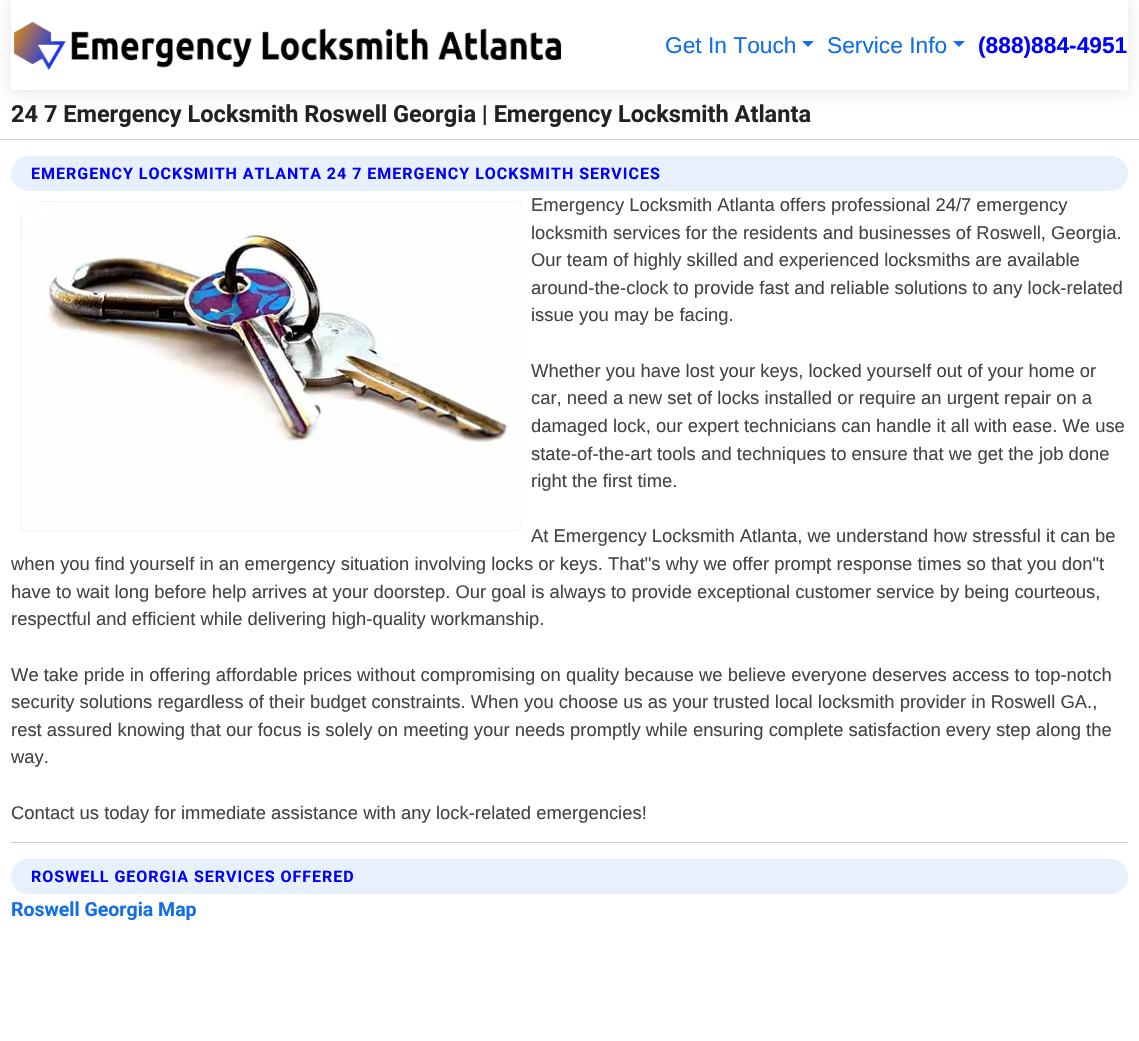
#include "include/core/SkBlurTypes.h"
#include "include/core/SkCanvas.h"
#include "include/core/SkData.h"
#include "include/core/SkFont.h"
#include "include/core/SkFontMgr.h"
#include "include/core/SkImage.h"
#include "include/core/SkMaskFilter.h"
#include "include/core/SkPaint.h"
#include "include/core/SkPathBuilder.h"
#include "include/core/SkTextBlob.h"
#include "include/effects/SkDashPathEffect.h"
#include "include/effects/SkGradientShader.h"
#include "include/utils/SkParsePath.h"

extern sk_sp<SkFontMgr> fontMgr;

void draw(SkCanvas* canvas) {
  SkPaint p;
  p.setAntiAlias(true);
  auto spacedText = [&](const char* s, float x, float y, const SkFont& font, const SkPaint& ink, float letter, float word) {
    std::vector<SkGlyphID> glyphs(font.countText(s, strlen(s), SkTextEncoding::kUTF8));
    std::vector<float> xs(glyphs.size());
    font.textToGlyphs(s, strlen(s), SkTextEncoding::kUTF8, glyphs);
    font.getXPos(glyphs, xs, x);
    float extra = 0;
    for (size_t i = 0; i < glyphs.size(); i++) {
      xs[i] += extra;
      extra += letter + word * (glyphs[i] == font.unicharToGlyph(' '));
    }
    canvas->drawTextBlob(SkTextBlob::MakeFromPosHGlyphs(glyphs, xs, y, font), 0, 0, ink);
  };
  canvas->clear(SK_ColorWHITE);
  canvas->save();
  canvas->clipPath(SkPathBuilder(SkPathFillType::kEvenOdd).moveTo(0, 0).lineTo(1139, 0).lineTo(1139, 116).lineTo(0, 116).close().moveTo(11, 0).lineTo(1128, 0).lineTo(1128, 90).lineTo(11, 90).close().detach(), true);
  p.setColor(SkColorSetARGB(26, 0, 0, 0));
  p.setMaskFilter(SkMaskFilter::MakeBlur(kNormal_SkBlurStyle, 7.5f));
  canvas->drawRect(SkRect::MakeLTRB(11, 2, 1128, 92), p);
  p.setMaskFilter(nullptr);
  canvas->restore();
  canvas->drawImageRect(SkImages::DeferredFromEncodedData(SkData::MakeFromFileName("images/1.png")), SkRect::MakeLTRB(13, 21, 562, 71), SkSamplingOptions());
  p.setColor(SkColorSetRGB(16, 110, 234));
  canvas->drawPath(SkPathBuilder().moveTo(802, 41).lineTo(814, 41).lineTo(808, 47).close().detach(), p);
  canvas->drawPath(SkPathBuilder().moveTo(953, 41).lineTo(965, 41).lineTo(959, 47).close().detach(), p);
  p.setColor(SkColorSetRGB(208, 208, 208));
  canvas->drawRect(SkRect::MakeLTRB(0, 139, 1139, 140), p);
  p.setColor(SkColorSetRGB(231, 241, 253));
  canvas->drawRoundRect(SkRect::MakeLTRB(11, 156, 1128, 191), 17.5f, 17.5f, p);
  canvas->drawImageRect(SkImages::DeferredFromEncodedData(SkData::MakeFromFileName("images/2.png")), SkRect::MakeLTRB(21, 201, 521, 532), SkSamplingOptions());
  p.setColor(SkColorSetRGB(208, 208, 208));
  canvas->drawRect(SkRect::MakeLTRB(11, 842, 1128, 843), p);
  p.setColor(SkColorSetRGB(231, 241, 253));
  canvas->drawRoundRect(SkRect::MakeLTRB(11, 859, 1128, 894), 17.5f, 17.5f, p);
  SkFont font1(fontMgr->matchFamilyStyle("Liberation Sans", SkFontStyle::Normal()), 22.75f);
  font1.setSubpixel(true);
  p.setColor(SkColorSetRGB(16, 110, 234));
  canvas->drawString("Get In Touch", 665, 53, font1, p);
  canvas->drawString("Service Info", 827, 53, font1, p);
  SkFont font2(fontMgr->matchFamilyStyle("Liberation Sans", SkFontStyle::Bold()), 22.75f);
  font2.setSubpixel(true);
  p.setColor(SkColorSetRGB(0, 0, 255));
  canvas->drawString("(888)884-4951", 978, 53, font2, p);
  SkFont font3(fontMgr->matchFamilyStyle("Roboto", SkFontStyle::Bold()), 23.55f);
  font3.setSubpixel(true);
  p.setColor(SkColorSetRGB(34, 34, 34));
  canvas->drawString("24 7 Emergency Locksmith Roswell Georgia | Emergency Locksmith Atlanta", 11, 122, font3, p);
  SkFont font4(fontMgr->matchFamilyStyle("Roboto", SkFontStyle::Bold()), 16);
  font4.setSubpixel(true);
  p.setColor(SkColorSetRGB(0, 0, 255));
  spacedText("EMERGENCY LOCKSMITH ATLANTA 24 7 EMERGENCY LOCKSMITH SERVICES", 31, 179, font4, p, 1, 0);
  SkFont font5(fontMgr->matchFamilyStyle("Liberation Sans", SkFontStyle::Normal()), 18.42f);
  font5.setSubpixel(true);
  p.setColor(SkColorSetRGB(68, 68, 68));
  canvas->drawString("Emergency Locksmith Atlanta offers professional 24/7 emergency", 531, 211, font5, p);
  canvas->drawString("locksmith services for the residents and businesses of Roswell, Georgia.", 531, 239, font5, p);
  canvas->drawString("Our team of highly skilled and experienced locksmiths are available", 531, 266, font5, p);
  canvas->drawString("around-the-clock to provide fast and reliable solutions to any lock-related", 531, 294, font5, p);
  canvas->drawString("issue you may be facing.", 531, 321, font5, p);
  canvas->drawString("Whether you have lost your keys, locked yourself out of your home or", 531, 377, font5, p);
  canvas->drawString("car, need a new set of locks installed or require an urgent repair on a", 531, 404, font5, p);
  canvas->drawString("damaged lock, our expert technicians can handle it all with ease. We use", 531, 432, font5, p);
  canvas->drawString("state-of-the-art tools and techniques to ensure that we get the job done", 531, 460, font5, p);
  canvas->drawString("right the first time.", 531, 487, font5, p);
  canvas->drawString("At Emergency Locksmith Atlanta, we understand how stressful it can be", 531, 542, font5, p);
  canvas->drawString("when you find yourself in an emergency situation involving locks or keys. That\"s why we offer prompt response times so that you don\"t", 11, 570, font5, p);
  canvas->drawString("have to wait long before help arrives at your doorstep. Our goal is always to provide exceptional customer service by being courteous,", 11, 598, font5, p);
  canvas->drawString("respectful and efficient while delivering high-quality workmanship.", 11, 625, font5, p);
  canvas->drawString("We take pride in offering affordable prices without compromising on quality because we believe everyone deserves access to top-notch", 11, 681, font5, p);
  canvas->drawString("security solutions regardless of their budget constraints. When you choose us as your trusted local locksmith provider in Roswell GA.,", 11, 708, font5, p);
  canvas->drawString("rest assured knowing that our focus is solely on meeting your needs promptly while ensuring complete satisfaction every step along the", 11, 736, font5, p);
  canvas->drawString("way.", 11, 763, font5, p);
  canvas->drawString("Contact us today for immediate assistance with any lock-related emergencies!", 11, 819, font5, p);
  p.setColor(SkColorSetRGB(0, 0, 255));
  spacedText("ROSWELL GEORGIA SERVICES OFFERED", 31, 882, font4, p, 1, 0);
  SkFont font6(fontMgr->matchFamilyStyle("Roboto", SkFontStyle::Bold()), 19.5f);
  font6.setSubpixel(true);
  p.setColor(SkColorSetRGB(16, 110, 234));
  canvas->drawString("Roswell Georgia Map", 11, 916, font6, p);
}
